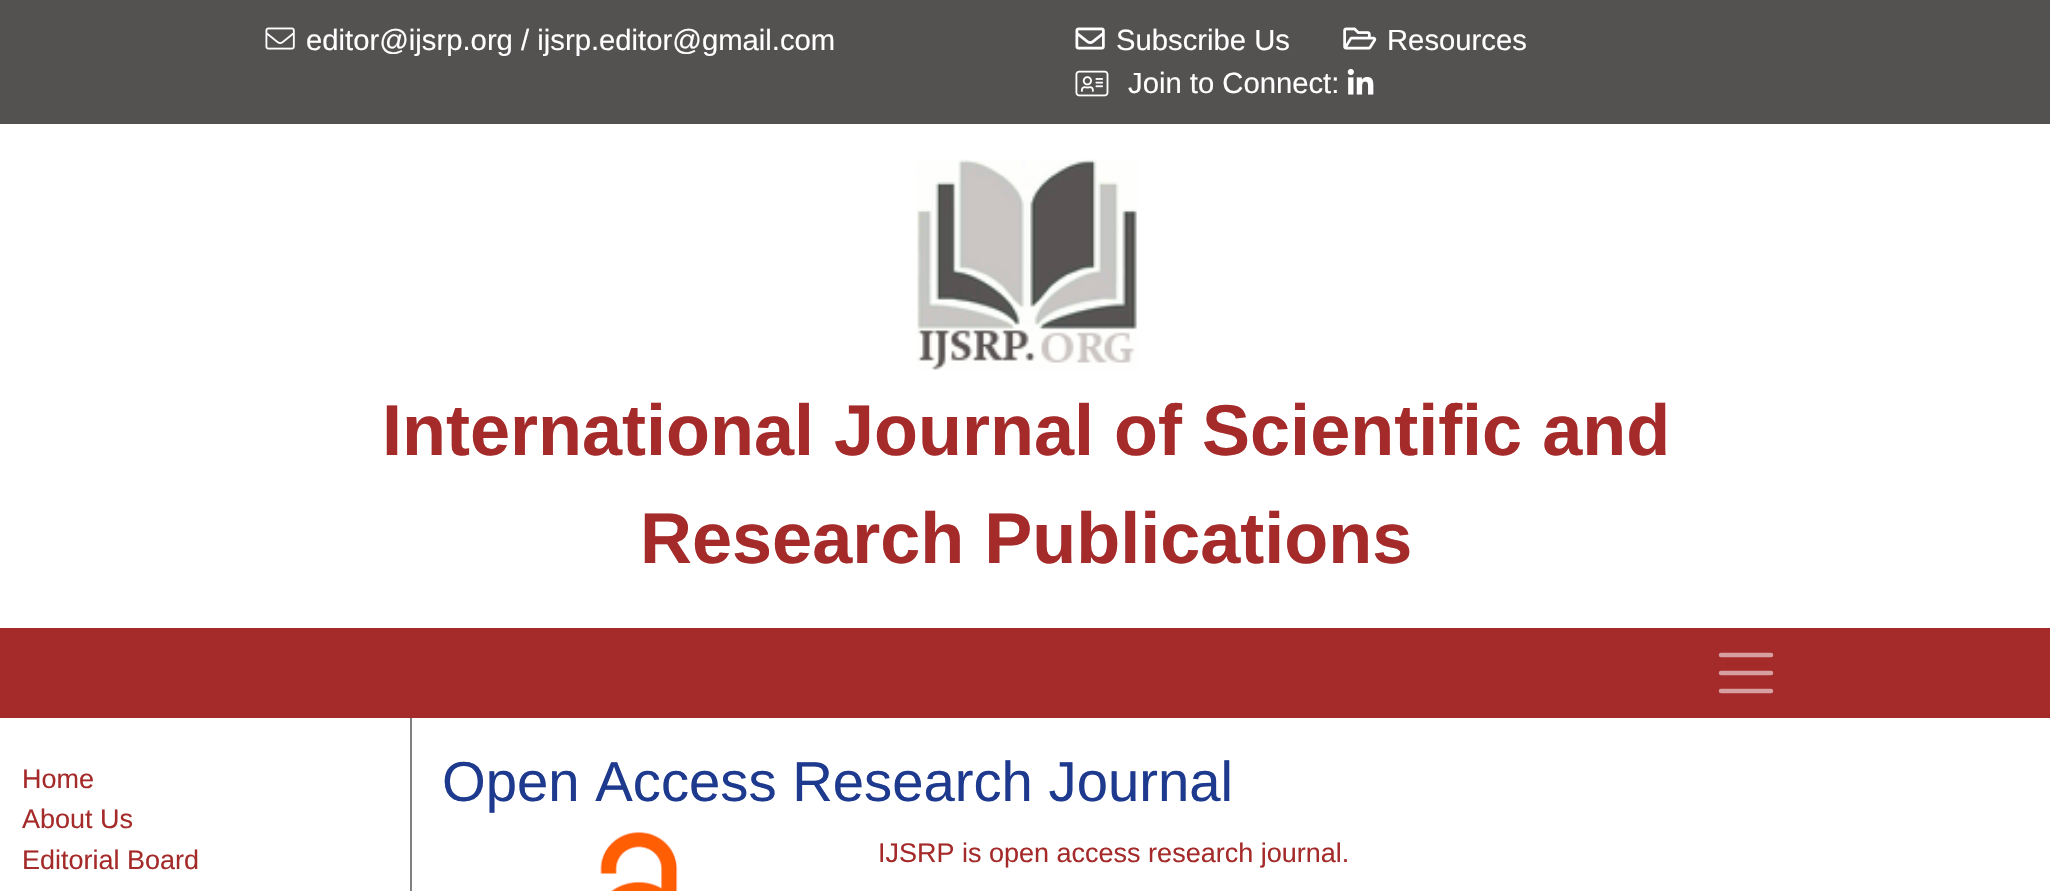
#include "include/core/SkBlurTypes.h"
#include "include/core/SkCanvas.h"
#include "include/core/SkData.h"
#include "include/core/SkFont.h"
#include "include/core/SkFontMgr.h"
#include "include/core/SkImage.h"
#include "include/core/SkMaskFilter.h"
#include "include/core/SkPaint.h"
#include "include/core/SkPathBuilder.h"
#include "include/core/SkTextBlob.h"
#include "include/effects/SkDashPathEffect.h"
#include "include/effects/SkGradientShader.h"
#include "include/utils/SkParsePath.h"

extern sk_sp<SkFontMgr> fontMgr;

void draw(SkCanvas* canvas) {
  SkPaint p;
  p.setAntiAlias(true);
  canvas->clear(SK_ColorWHITE);
  p.setColor(SkColorSetRGB(84, 81, 81));
  canvas->drawRect(SkRect::MakeLTRB(0, 0, 2050, 124), p);
  canvas->drawImageRect(SkImages::DeferredFromEncodedData(SkData::MakeFromFileName("images/1.png")), SkRect::MakeLTRB(265, 27, 295, 50), SkSamplingOptions());
  canvas->drawImageRect(SkImages::DeferredFromEncodedData(SkData::MakeFromFileName("images/2.png")), SkRect::MakeLTRB(1075, 27, 1105, 50), SkSamplingOptions());
  canvas->drawImageRect(SkImages::DeferredFromEncodedData(SkData::MakeFromFileName("images/3.png")), SkRect::MakeLTRB(1343, 27, 1377, 50), SkSamplingOptions());
  canvas->drawImageRect(SkImages::DeferredFromEncodedData(SkData::MakeFromFileName("images/4.png")), SkRect::MakeLTRB(1075, 70, 1109, 97), SkSamplingOptions());
  canvas->drawImageRect(SkImages::DeferredFromEncodedData(SkData::MakeFromFileName("images/5.png")), SkRect::MakeLTRB(1347, 68, 1374, 95), SkSamplingOptions());
  canvas->drawImageRect(SkImages::DeferredFromEncodedData(SkData::MakeFromFileName("images/6.png")), SkRect::MakeLTRB(916, 159, 1138, 370), SkSamplingOptions());
  p.setColor(SkColorSetRGB(165, 42, 42));
  canvas->drawRect(SkRect::MakeLTRB(0, 628, 2050, 718), p);
  p.setStyle(SkPaint::kStroke_Style);
  p.setStrokeWidth(4.5f);
  p.setStrokeCap(SkPaint::kRound_Cap);
  p.setColor(SkColorSetRGB(215, 159, 159));
  canvas->drawPath(SkPathBuilder().moveTo(1721, 655).lineTo(1771, 655).moveTo(1721, 673).lineTo(1771, 673).moveTo(1721, 691).lineTo(1771, 691).detach(), p);
  p.setStyle(SkPaint::kFill_Style);
  p.setColor(SkColorSetRGB(128, 128, 128));
  canvas->drawRect(SkRect::MakeLTRB(410, 718, 412, 891), p);
  canvas->drawImageRect(SkImages::DeferredFromEncodedData(SkData::MakeFromFileName("images/7.png")), SkRect::MakeLTRB(600, 832, 678, 891), SkSamplingOptions());
  SkFont font1(fontMgr->matchFamilyStyle("Liberation Sans", SkFontStyle::Normal()), 29.25f);
  font1.setSubpixel(true);
  p.setColor(SK_ColorWHITE);
  canvas->drawString("editor@ijsrp.org / ijsrp.editor@gmail.com", 306, 50, font1, p);
  canvas->drawString("Subscribe Us", 1116, 50, font1, p);
  canvas->drawString("Resources", 1387, 50, font1, p);
  canvas->drawString("Join to Connect:", 1128, 93, font1, p);
  SkFont font2(fontMgr->matchFamilyStyle("Liberation Sans", SkFontStyle::Bold()), 72);
  font2.setSubpixel(true);
  p.setColor(SkColorSetRGB(165, 42, 42));
  canvas->drawString("International Journal of Scientific and", 382, 455, font2, p);
  canvas->drawString("Research Publications", 640, 563, font2, p);
  SkFont font3(fontMgr->matchFamilyStyle("Liberation Sans", SkFontStyle::Normal()), 27);
  font3.setSubpixel(true);
  canvas->drawString("Home", 22, 788, font3, p);
  canvas->drawString("About Us", 22, 828, font3, p);
  canvas->drawString("Editorial Board", 22, 869, font3, p);
  SkFont font4(fontMgr->matchFamilyStyle("Liberation Sans", SkFontStyle::Normal()), 56.25f);
  font4.setSubpixel(true);
  p.setColor(SkColorSetRGB(30, 58, 142));
  canvas->drawString("Open Access Research Journal", 442, 801, font4, p);
  p.setColor(SkColorSetRGB(165, 42, 42));
  canvas->drawString("IJSRP is open access research journal.", 878, 862, font3, p);
}
